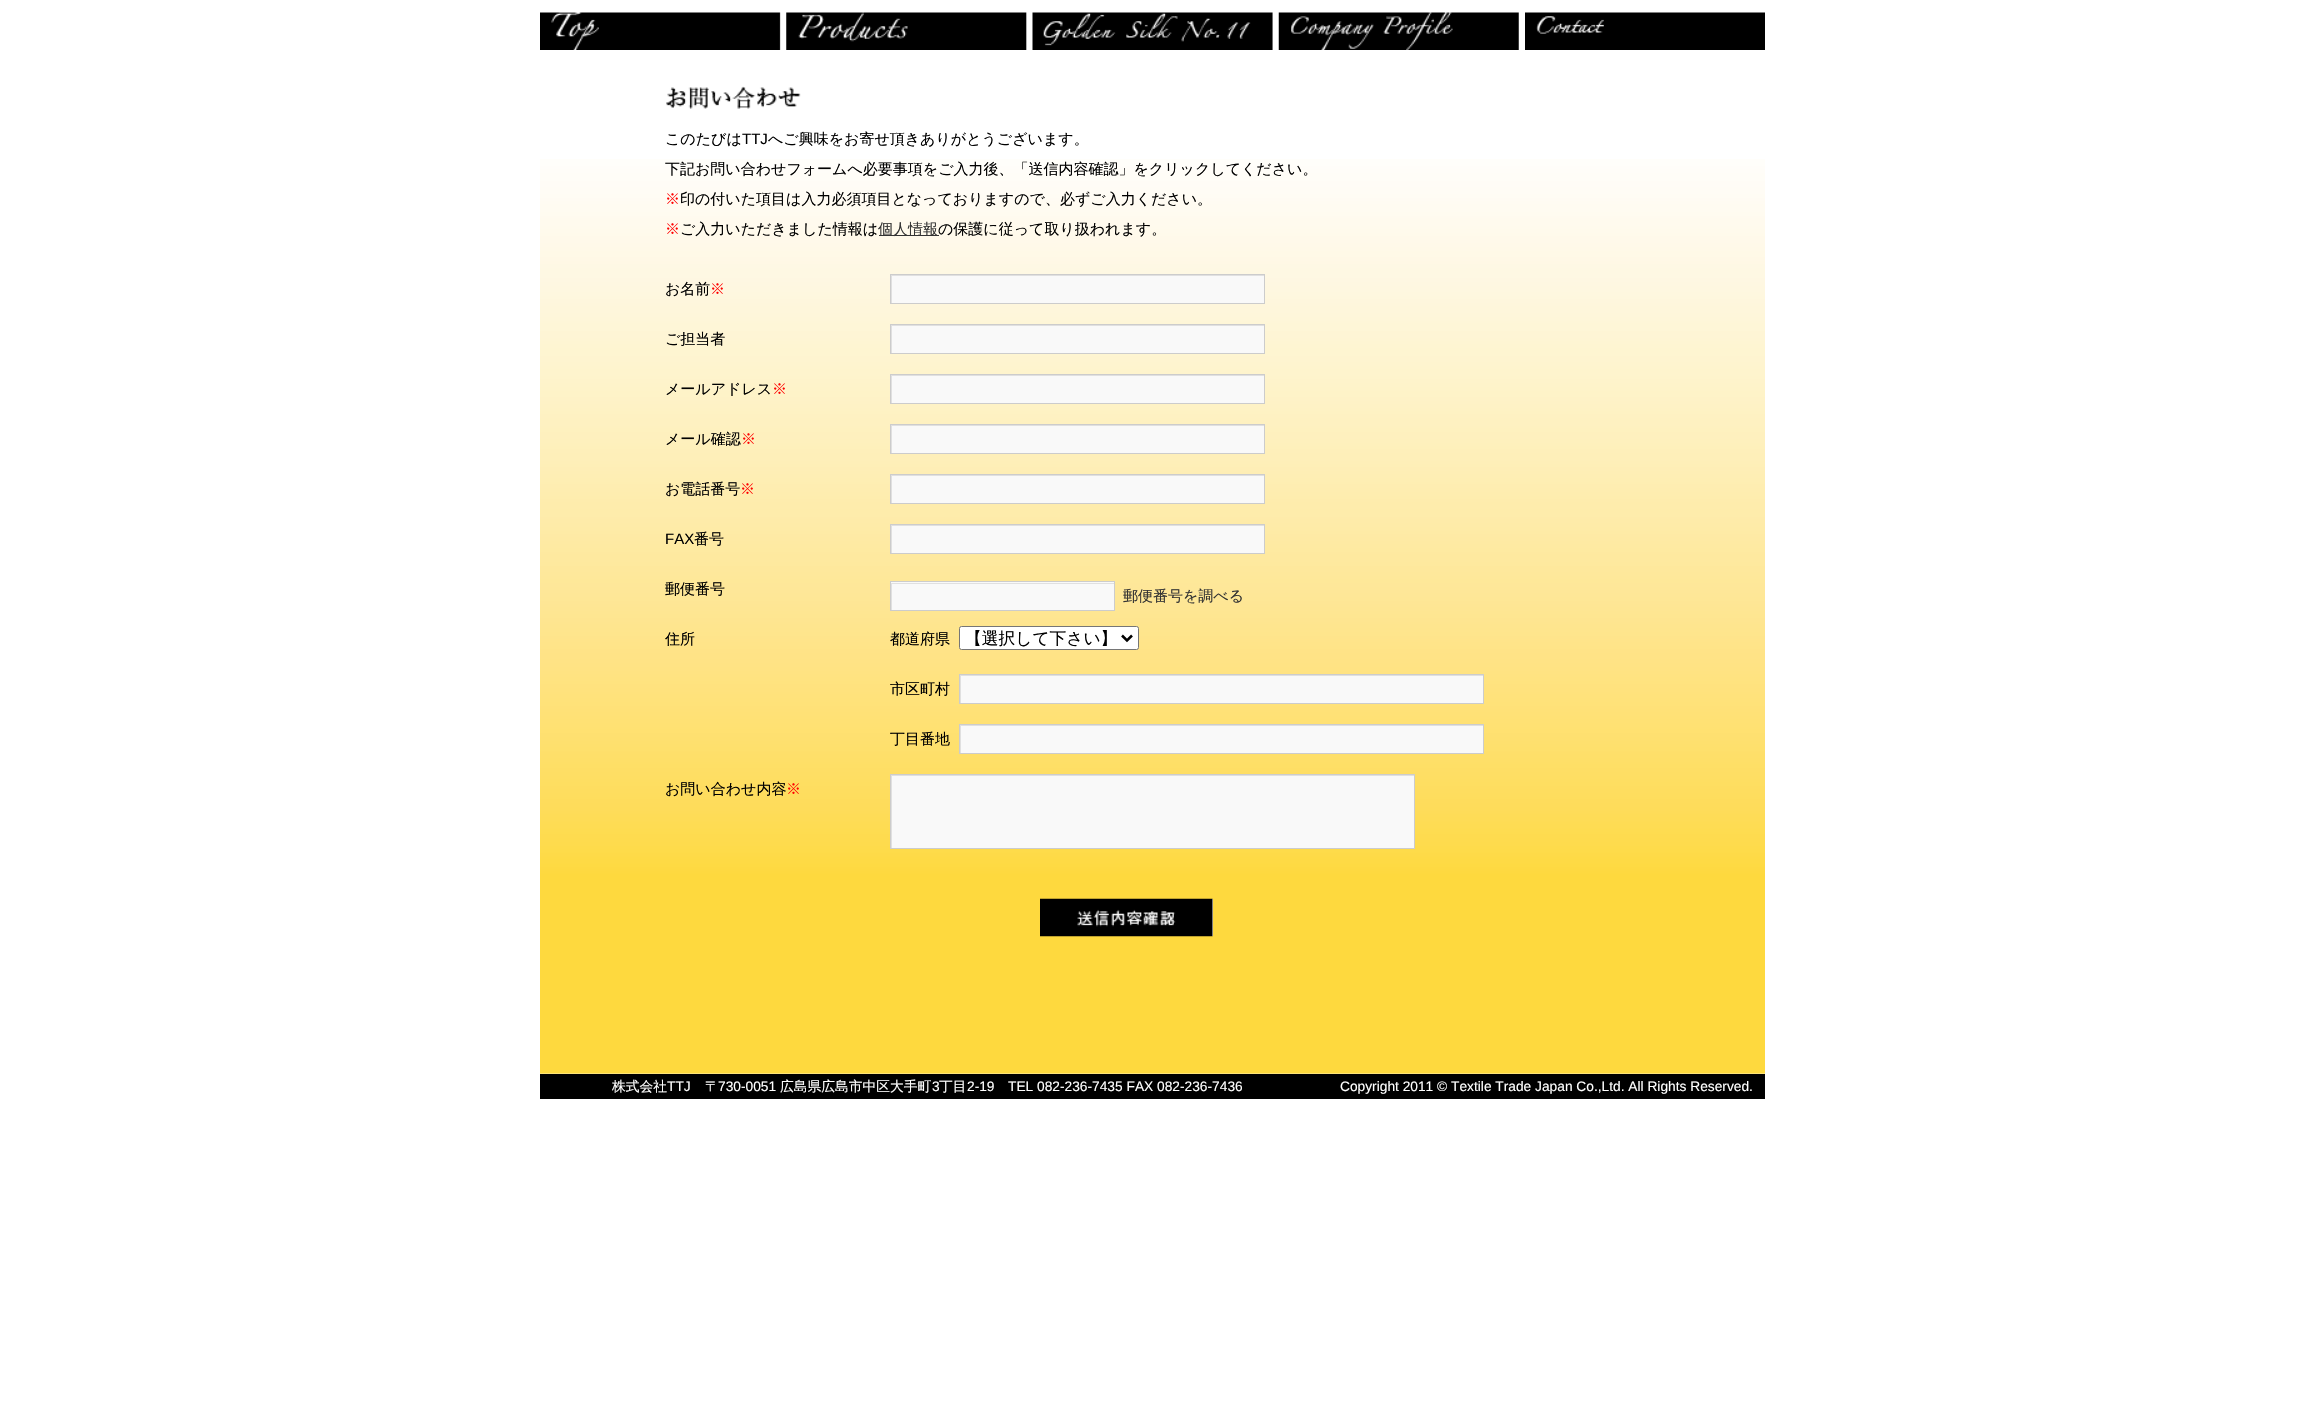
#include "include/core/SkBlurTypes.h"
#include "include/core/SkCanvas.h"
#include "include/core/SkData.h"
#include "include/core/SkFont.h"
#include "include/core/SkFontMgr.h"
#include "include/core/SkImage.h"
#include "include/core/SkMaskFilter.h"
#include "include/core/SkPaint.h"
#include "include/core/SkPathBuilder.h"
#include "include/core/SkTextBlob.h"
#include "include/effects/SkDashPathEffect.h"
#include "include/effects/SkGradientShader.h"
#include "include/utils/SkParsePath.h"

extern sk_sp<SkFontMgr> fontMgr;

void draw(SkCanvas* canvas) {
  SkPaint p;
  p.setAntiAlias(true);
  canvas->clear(SK_ColorWHITE);
  canvas->drawImageRect(SkImages::DeferredFromEncodedData(SkData::MakeFromFileName("images/1.png")), SkRect::MakeLTRB(540, 12, 781, 50), SkSamplingOptions());
  canvas->drawImageRect(SkImages::DeferredFromEncodedData(SkData::MakeFromFileName("images/2.png")), SkRect::MakeLTRB(786, 12, 1027, 50), SkSamplingOptions());
  canvas->drawImageRect(SkImages::DeferredFromEncodedData(SkData::MakeFromFileName("images/3.png")), SkRect::MakeLTRB(1032, 12, 1273, 50), SkSamplingOptions());
  canvas->drawImageRect(SkImages::DeferredFromEncodedData(SkData::MakeFromFileName("images/4.png")), SkRect::MakeLTRB(1278, 12, 1519, 50), SkSamplingOptions());
  canvas->drawImageRect(SkImages::DeferredFromEncodedData(SkData::MakeFromFileName("images/5.png")), SkRect::MakeLTRB(1525, 12, 1765, 50), SkSamplingOptions());
  canvas->drawImageRect(SkImages::DeferredFromEncodedData(SkData::MakeFromFileName("images/6.png")), SkRect::MakeLTRB(540, 1073, 1765, 1074), SkSamplingOptions());
  canvas->drawImageRect(SkImages::DeferredFromEncodedData(SkData::MakeFromFileName("images/7.png")), SkRect::MakeLTRB(540, 159, 1765, 1074), SkSamplingOptions());
  canvas->drawImageRect(SkImages::DeferredFromEncodedData(SkData::MakeFromFileName("images/8.png")), SkRect::MakeLTRB(666, 86, 801, 109), SkSamplingOptions());
  p.setColor(SkColorSetRGB(51, 51, 51));
  canvas->drawRect(SkRect::MakeLTRB(879, 235, 939, 236), p);
  p.setColor(SkColorSetRGB(249, 249, 249));
  canvas->drawRect(SkRect::MakeLTRB(892, 276, 1264, 303), p);
  canvas->save();
  canvas->clipRect(SkRect::MakeLTRB(891, 275, 1264, 303));
  p.setColor(SkColorSetRGB(224, 224, 224));
  canvas->drawPath(SkPathBuilder(SkPathFillType::kEvenOdd).moveTo(768, 151).lineTo(1388, 151).lineTo(1388, 426).lineTo(768, 426).close().moveTo(892, 276).lineTo(1265, 276).lineTo(1265, 304).lineTo(892, 304).close().detach(), p);
  canvas->restore();
  p.setStyle(SkPaint::kStroke_Style);
  p.setStrokeWidth(1);
  p.setColor(SkColorSetRGB(204, 204, 204));
  canvas->drawRect(SkRect::MakeLTRB(890.5f, 274.5f, 1264.5f, 303.5f), p);
  p.setStyle(SkPaint::kFill_Style);
  p.setColor(SkColorSetRGB(249, 249, 249));
  canvas->drawRect(SkRect::MakeLTRB(892, 326, 1264, 353), p);
  canvas->save();
  canvas->clipRect(SkRect::MakeLTRB(891, 325, 1264, 353));
  p.setColor(SkColorSetRGB(224, 224, 224));
  canvas->drawPath(SkPathBuilder(SkPathFillType::kEvenOdd).moveTo(768, 201).lineTo(1388, 201).lineTo(1388, 476).lineTo(768, 476).close().moveTo(892, 326).lineTo(1265, 326).lineTo(1265, 354).lineTo(892, 354).close().detach(), p);
  canvas->restore();
  p.setStyle(SkPaint::kStroke_Style);
  p.setColor(SkColorSetRGB(204, 204, 204));
  canvas->drawRect(SkRect::MakeLTRB(890.5f, 324.5f, 1264.5f, 353.5f), p);
  p.setStyle(SkPaint::kFill_Style);
  p.setColor(SkColorSetRGB(249, 249, 249));
  canvas->drawRect(SkRect::MakeLTRB(892, 376, 1264, 403), p);
  canvas->save();
  canvas->clipRect(SkRect::MakeLTRB(891, 375, 1264, 403));
  p.setColor(SkColorSetRGB(224, 224, 224));
  canvas->drawPath(SkPathBuilder(SkPathFillType::kEvenOdd).moveTo(768, 251).lineTo(1388, 251).lineTo(1388, 526).lineTo(768, 526).close().moveTo(892, 376).lineTo(1265, 376).lineTo(1265, 404).lineTo(892, 404).close().detach(), p);
  canvas->restore();
  p.setStyle(SkPaint::kStroke_Style);
  p.setColor(SkColorSetRGB(204, 204, 204));
  canvas->drawRect(SkRect::MakeLTRB(890.5f, 374.5f, 1264.5f, 403.5f), p);
  p.setStyle(SkPaint::kFill_Style);
  p.setColor(SkColorSetRGB(249, 249, 249));
  canvas->drawRect(SkRect::MakeLTRB(892, 426, 1264, 453), p);
  canvas->save();
  canvas->clipRect(SkRect::MakeLTRB(891, 425, 1264, 453));
  p.setColor(SkColorSetRGB(224, 224, 224));
  canvas->drawPath(SkPathBuilder(SkPathFillType::kEvenOdd).moveTo(768, 301).lineTo(1388, 301).lineTo(1388, 576).lineTo(768, 576).close().moveTo(892, 426).lineTo(1265, 426).lineTo(1265, 454).lineTo(892, 454).close().detach(), p);
  canvas->restore();
  p.setStyle(SkPaint::kStroke_Style);
  p.setColor(SkColorSetRGB(204, 204, 204));
  canvas->drawRect(SkRect::MakeLTRB(890.5f, 424.5f, 1264.5f, 453.5f), p);
  p.setStyle(SkPaint::kFill_Style);
  p.setColor(SkColorSetRGB(249, 249, 249));
  canvas->drawRect(SkRect::MakeLTRB(892, 476, 1264, 503), p);
  canvas->save();
  canvas->clipRect(SkRect::MakeLTRB(891, 475, 1264, 503));
  p.setColor(SkColorSetRGB(224, 224, 224));
  canvas->drawPath(SkPathBuilder(SkPathFillType::kEvenOdd).moveTo(768, 351).lineTo(1388, 351).lineTo(1388, 626).lineTo(768, 626).close().moveTo(892, 476).lineTo(1265, 476).lineTo(1265, 504).lineTo(892, 504).close().detach(), p);
  canvas->restore();
  p.setStyle(SkPaint::kStroke_Style);
  p.setColor(SkColorSetRGB(204, 204, 204));
  canvas->drawRect(SkRect::MakeLTRB(890.5f, 474.5f, 1264.5f, 503.5f), p);
  p.setStyle(SkPaint::kFill_Style);
  p.setColor(SkColorSetRGB(249, 249, 249));
  canvas->drawRect(SkRect::MakeLTRB(892, 526, 1264, 553), p);
  canvas->save();
  canvas->clipRect(SkRect::MakeLTRB(891, 525, 1264, 553));
  p.setColor(SkColorSetRGB(224, 224, 224));
  canvas->drawPath(SkPathBuilder(SkPathFillType::kEvenOdd).moveTo(768, 401).lineTo(1388, 401).lineTo(1388, 676).lineTo(768, 676).close().moveTo(892, 526).lineTo(1265, 526).lineTo(1265, 554).lineTo(892, 554).close().detach(), p);
  canvas->restore();
  p.setStyle(SkPaint::kStroke_Style);
  p.setColor(SkColorSetRGB(204, 204, 204));
  canvas->drawRect(SkRect::MakeLTRB(890.5f, 524.5f, 1264.5f, 553.5f), p);
  p.setStyle(SkPaint::kFill_Style);
  p.setColor(SkColorSetRGB(249, 249, 249));
  canvas->drawRect(SkRect::MakeLTRB(891, 582, 1114, 610), p);
  canvas->save();
  canvas->clipRect(SkRect::MakeLTRB(891, 583, 1114, 610));
  p.setColor(SkColorSetRGB(224, 224, 224));
  canvas->drawPath(SkPathBuilder(SkPathFillType::kEvenOdd).moveTo(768, 459).lineTo(1238, 459).lineTo(1238, 734).lineTo(768, 734).close().moveTo(892, 584).lineTo(1115, 584).lineTo(1115, 611).lineTo(892, 611).close().detach(), p);
  canvas->restore();
  p.setStyle(SkPaint::kStroke_Style);
  p.setColor(SkColorSetRGB(204, 204, 204));
  canvas->drawRect(SkRect::MakeLTRB(890.5f, 581.5f, 1114.5f, 610.5f), p);
  p.setStyle(SkPaint::kFill_Style);
  p.setColor(SK_ColorWHITE);
  canvas->drawRoundRect(SkRect::MakeLTRB(959.5f, 626.5f, 1138.5f, 649.5f), 2, 2, p);
  p.setStyle(SkPaint::kStroke_Style);
  p.setColor(SkColorSetRGB(118, 118, 118));
  canvas->drawRoundRect(SkRect::MakeLTRB(959.5f, 626.5f, 1138.5f, 649.5f), 2, 2, p);
  p.setStrokeWidth(2.5f);
  p.setColor(SK_ColorBLACK);
  canvas->drawPath(SkPathBuilder().moveTo(1122, 635.5f).lineTo(1127, 640.5f).lineTo(1132, 635.5f).detach(), p);
  p.setStyle(SkPaint::kFill_Style);
  p.setColor(SkColorSetRGB(249, 249, 249));
  canvas->drawRect(SkRect::MakeLTRB(961, 676, 1483, 703), p);
  canvas->save();
  canvas->clipRect(SkRect::MakeLTRB(960, 675, 1483, 703));
  p.setColor(SkColorSetRGB(224, 224, 224));
  canvas->drawPath(SkPathBuilder(SkPathFillType::kEvenOdd).moveTo(836, 551).lineTo(1606, 551).lineTo(1606, 826).lineTo(836, 826).close().moveTo(961, 676).lineTo(1484, 676).lineTo(1484, 704).lineTo(961, 704).close().detach(), p);
  canvas->restore();
  p.setStyle(SkPaint::kStroke_Style);
  p.setStrokeWidth(1);
  p.setColor(SkColorSetRGB(204, 204, 204));
  canvas->drawRect(SkRect::MakeLTRB(959.5f, 674.5f, 1483.5f, 703.5f), p);
  p.setStyle(SkPaint::kFill_Style);
  p.setColor(SkColorSetRGB(249, 249, 249));
  canvas->drawRect(SkRect::MakeLTRB(961, 726, 1483, 753), p);
  canvas->save();
  canvas->clipRect(SkRect::MakeLTRB(960, 725, 1483, 753));
  p.setColor(SkColorSetRGB(224, 224, 224));
  canvas->drawPath(SkPathBuilder(SkPathFillType::kEvenOdd).moveTo(836, 601).lineTo(1606, 601).lineTo(1606, 876).lineTo(836, 876).close().moveTo(961, 726).lineTo(1484, 726).lineTo(1484, 754).lineTo(961, 754).close().detach(), p);
  canvas->restore();
  p.setStyle(SkPaint::kStroke_Style);
  p.setColor(SkColorSetRGB(204, 204, 204));
  canvas->drawRect(SkRect::MakeLTRB(959.5f, 724.5f, 1483.5f, 753.5f), p);
  p.setStyle(SkPaint::kFill_Style);
  p.setColor(SkColorSetRGB(249, 249, 249));
  canvas->drawRect(SkRect::MakeLTRB(892, 776, 1414, 848), p);
  canvas->save();
  canvas->clipRect(SkRect::MakeLTRB(891, 775, 1414, 848));
  p.setColor(SkColorSetRGB(224, 224, 224));
  canvas->drawPath(SkPathBuilder(SkPathFillType::kEvenOdd).moveTo(768, 651).lineTo(1538, 651).lineTo(1538, 971).lineTo(768, 971).close().moveTo(892, 776).lineTo(1415, 776).lineTo(1415, 849).lineTo(892, 849).close().detach(), p);
  canvas->restore();
  p.setStyle(SkPaint::kStroke_Style);
  p.setColor(SkColorSetRGB(204, 204, 204));
  canvas->drawRect(SkRect::MakeLTRB(890.5f, 774.5f, 1414.5f, 848.5f), p);
  p.setStyle(SkPaint::kFill_Style);
  p.setColor(SK_ColorWHITE);
  canvas->drawRect(SkRect::MakeLTRB(1212, 899, 1213, 936), p);
  canvas->drawImageRect(SkImages::DeferredFromEncodedData(SkData::MakeFromFileName("images/9.png")), SkRect::MakeLTRB(1040, 898, 1213, 937), SkSamplingOptions());
  p.setColor(SK_ColorBLACK);
  canvas->drawRect(SkRect::MakeLTRB(540, 1074, 1765, 1099), p);
  SkFont font1(fontMgr->matchFamilyStyle("WenQuanYi Zen Hei", SkFontStyle(500, SkFontStyle::kNormal_Width, SkFontStyle::kUpright_Slant)), 15);
  font1.setSubpixel(true);
  canvas->drawString("このたびは", 665, 144, font1, p);
  SkFont font2(fontMgr->matchFamilyStyle("Liberation Sans", SkFontStyle::Normal()), 15);
  font2.setSubpixel(true);
  canvas->drawString("TTJ", 742, 144, font2, p);
  canvas->drawString("へご興味をお寄せ頂きありがとうございます。", 768, 144, font1, p);
  canvas->drawString("下記お問い合わせフォームへ必要事項をご入力後、「送信内容確認」をクリックしてください。", 665, 174, font1, p);
  p.setColor(SkColorSetRGB(255, 0, 0));
  canvas->drawString("※", 665, 204, font1, p);
  p.setColor(SK_ColorBLACK);
  canvas->drawString("印の付いた項目は入力必須項目となっておりますので、必ずご入力ください。", 680, 204, font1, p);
  p.setColor(SkColorSetRGB(255, 0, 0));
  canvas->drawString("※", 665, 234, font1, p);
  p.setColor(SK_ColorBLACK);
  canvas->drawString("ご入力いただきました情報は", 680, 234, font1, p);
  p.setColor(SkColorSetRGB(51, 51, 51));
  canvas->drawString("個人情報", 878, 234, font1, p);
  p.setColor(SK_ColorBLACK);
  canvas->drawString("の保護に従って取り扱われます。", 938, 234, font1, p);
  canvas->drawString("お名前", 665, 294, font1, p);
  p.setColor(SkColorSetRGB(255, 0, 0));
  canvas->drawString("※", 710, 294, font1, p);
  p.setColor(SK_ColorBLACK);
  canvas->drawString("ご担当者", 665, 344, font1, p);
  canvas->drawString("メールアドレス", 665, 394, font1, p);
  p.setColor(SkColorSetRGB(255, 0, 0));
  canvas->drawString("※", 772, 394, font1, p);
  p.setColor(SK_ColorBLACK);
  canvas->drawString("メール確認", 665, 444, font1, p);
  p.setColor(SkColorSetRGB(255, 0, 0));
  canvas->drawString("※", 741, 444, font1, p);
  p.setColor(SK_ColorBLACK);
  canvas->drawString("お電話番号", 665, 494, font1, p);
  p.setColor(SkColorSetRGB(255, 0, 0));
  canvas->drawString("※", 740, 494, font1, p);
  p.setColor(SK_ColorBLACK);
  canvas->drawString("FAX", 665, 544, font2, p);
  canvas->drawString("番号", 694, 544, font1, p);
  canvas->drawString("郵便番号", 665, 594, font1, p);
  canvas->drawString("住所", 665, 644, font1, p);
  canvas->drawString("お問い合わせ内容", 665, 794, font1, p);
  p.setColor(SkColorSetRGB(255, 0, 0));
  canvas->drawString("※", 786, 794, font1, p);
  p.setColor(SkColorSetRGB(51, 51, 51));
  canvas->drawString("郵便番号を調べる", 1123, 601, font1, p);
  p.setColor(SK_ColorBLACK);
  canvas->drawString("都道府県", 890, 644, font1, p);
  SkFont font3(fontMgr->matchFamilyStyle("WenQuanYi Zen Hei", SkFontStyle(500, SkFontStyle::kNormal_Width, SkFontStyle::kUpright_Slant)), 16.75f);
  font3.setSubpixel(true);
  canvas->drawString("【選択して下さい】", 965, 644, font3, p);
  canvas->drawString("市区町村", 890, 694, font1, p);
  canvas->drawString("丁目番地", 890, 744, font1, p);
  SkFont font4(fontMgr->matchFamilyStyle("WenQuanYi Zen Hei", SkFontStyle(500, SkFontStyle::kNormal_Width, SkFontStyle::kUpright_Slant)), 13.75f);
  font4.setSubpixel(true);
  p.setColor(SK_ColorWHITE);
  canvas->drawString("株式会社", 612, 1091, font4, p);
  SkFont font5(fontMgr->matchFamilyStyle("Liberation Sans", SkFontStyle::Normal()), 13.75f);
  font5.setSubpixel(true);
  canvas->drawString("TTJ", 667, 1091, font5, p);
  canvas->drawString("〒", 705, 1091, font4, p);
  canvas->drawString("730-0051", 718, 1091, font5, p);
  canvas->drawString("広島県広島市中区大手町", 780, 1091, font4, p);
  canvas->drawString("3", 932, 1091, font5, p);
  canvas->drawString("丁目", 939, 1091, font4, p);
  canvas->drawString("2-19", 967, 1091, font5, p);
  canvas->drawString("TEL 082-236-7435 FAX 082-236-7436", 1008, 1091, font5, p);
  canvas->drawString("Copyright 2011 © Textile Trade Japan Co.,Ltd. All Rights Reserved.", 1340, 1091, font5, p);
}
